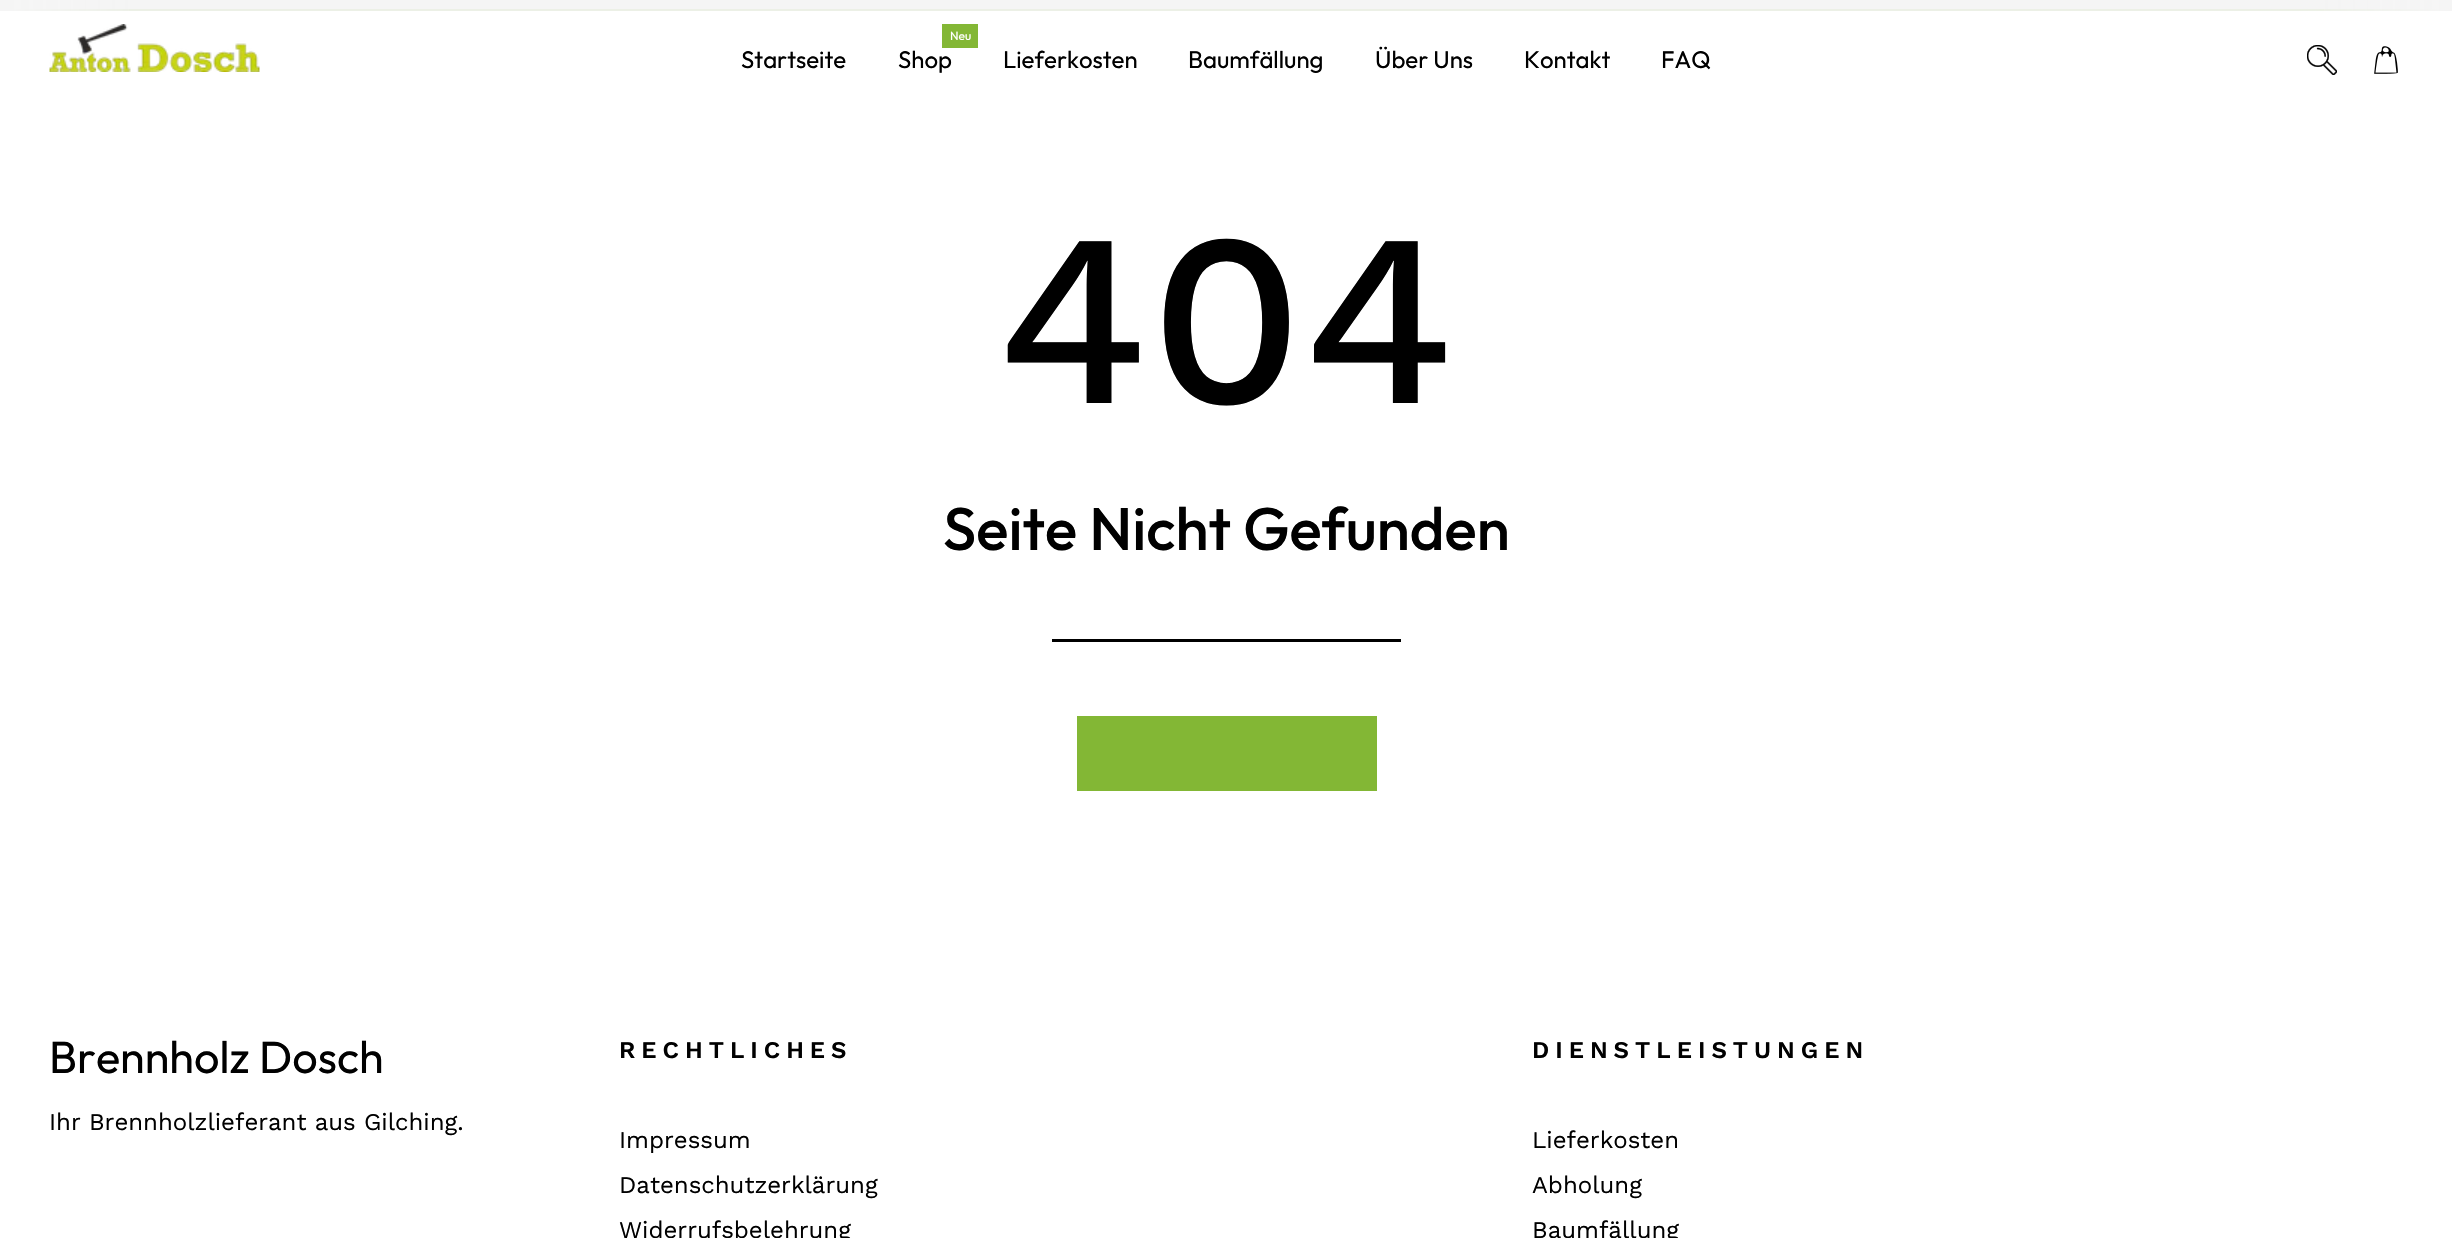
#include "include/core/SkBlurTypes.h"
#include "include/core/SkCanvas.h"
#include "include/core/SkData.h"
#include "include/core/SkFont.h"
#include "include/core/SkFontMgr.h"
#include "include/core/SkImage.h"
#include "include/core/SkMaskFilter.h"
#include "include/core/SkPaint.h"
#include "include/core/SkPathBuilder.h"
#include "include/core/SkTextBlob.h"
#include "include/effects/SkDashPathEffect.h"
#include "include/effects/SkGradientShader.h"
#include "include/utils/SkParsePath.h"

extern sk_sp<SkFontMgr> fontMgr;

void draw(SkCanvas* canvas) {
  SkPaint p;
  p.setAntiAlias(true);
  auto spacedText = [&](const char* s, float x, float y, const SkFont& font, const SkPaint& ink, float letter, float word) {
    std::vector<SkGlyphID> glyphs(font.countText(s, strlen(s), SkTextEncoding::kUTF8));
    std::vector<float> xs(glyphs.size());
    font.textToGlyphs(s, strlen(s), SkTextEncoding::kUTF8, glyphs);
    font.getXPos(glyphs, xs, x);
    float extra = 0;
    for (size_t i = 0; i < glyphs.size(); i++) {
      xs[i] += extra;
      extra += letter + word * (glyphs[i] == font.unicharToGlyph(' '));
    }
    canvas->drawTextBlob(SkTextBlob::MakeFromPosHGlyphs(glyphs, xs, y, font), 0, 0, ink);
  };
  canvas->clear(SK_ColorWHITE);
  p.setColor(SkColorSetRGB(245, 245, 245));
  canvas->drawRect(SkRect::MakeLTRB(8, 0, 2445, 9), p);
  p.setColor(SkColorSetRGB(236, 240, 230));
  canvas->drawRect(SkRect::MakeLTRB(0, 9, 2452, 11), p);
  {
    const SkColor colors[] = {SkColorSetRGB(245, 245, 245), SkColorSetARGB(0, 245, 245, 245)};
    const float stops[] = {0.05f, 1};
    const SkPoint ends[] = {{0, -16}, {150, -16}};
    p.setShader(SkGradientShader::MakeLinear(ends, colors, stops, 2, SkTileMode::kClamp));
    p.setAlpha(255);
  }
  canvas->drawRect(SkRect::MakeLTRB(0, 0, 129, 11), p);
  {
    const SkColor colors[] = {SkColorSetRGB(245, 245, 245), SkColorSetARGB(0, 245, 245, 245)};
    const float stops[] = {0.05f, 1};
    const SkPoint ends[] = {{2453, -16}, {2303, -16}};
    p.setShader(SkGradientShader::MakeLinear(ends, colors, stops, 2, SkTileMode::kClamp));
    p.setAlpha(255);
  }
  canvas->drawRect(SkRect::MakeLTRB(2324, 0, 2452, 11), p);
  canvas->drawImageRect(SkImages::DeferredFromEncodedData(SkData::MakeFromFileName("images/1.png")), SkRect::MakeLTRB(49, 24, 260, 72), SkSamplingOptions());
  p.setShader(nullptr);
  p.setColor(SkColorSetRGB(131, 183, 53));
  canvas->drawRect(SkRect::MakeLTRB(942, 24, 978, 48), p);
  canvas->drawImageRect(SkImages::DeferredFromEncodedData(SkData::MakeFromFileName("images/2.png")), SkRect::MakeLTRB(2307, 45, 2337, 75), SkSamplingOptions());
  canvas->drawImageRect(SkImages::DeferredFromEncodedData(SkData::MakeFromFileName("images/3.png")), SkRect::MakeLTRB(2374, 46, 2398, 74), SkSamplingOptions());
  p.setColor(SK_ColorBLACK);
  canvas->drawRect(SkRect::MakeLTRB(1052, 639, 1401, 642), p);
  p.setColor(SkColorSetRGB(131, 183, 53));
  canvas->drawRect(SkRect::MakeLTRB(1077, 716, 1377, 791), p);
  SkFont font1(fontMgr->matchFamilyStyle("Outfit", SkFontStyle::Normal()), 24);
  font1.setSubpixel(true);
  p.setColor(SK_ColorBLACK);
  canvas->drawString("Startseite", 741, 68, font1, p);
  SkFont font2(fontMgr->matchFamilyStyle("Outfit", SkFontStyle::Normal()), 12);
  font2.setSubpixel(true);
  p.setColor(SK_ColorWHITE);
  canvas->drawString("Neu", 950, 40, font2, p);
  p.setColor(SK_ColorBLACK);
  canvas->drawString("Shop", 898, 68, font1, p);
  canvas->drawString("Lieferkosten", 1003, 68, font1, p);
  canvas->drawString("Baumfällung", 1188, 68, font1, p);
  canvas->drawString("Über Uns", 1375, 68, font1, p);
  canvas->drawString("Kontakt", 1524, 68, font1, p);
  canvas->drawString("FAQ", 1661, 68, font1, p);
  SkFont font3(fontMgr->matchFamilyStyle("Work Sans", SkFontStyle(500, SkFontStyle::kNormal_Width, SkFontStyle::kUpright_Slant)), 245);
  font3.setSubpixel(true);
  canvas->drawString("404", 997, 403, font3, p);
  SkFont font4(fontMgr->matchFamilyStyle("Outfit", SkFontStyle(500, SkFontStyle::kNormal_Width, SkFontStyle::kUpright_Slant)), 60);
  font4.setSubpixel(true);
  canvas->drawString("Seite Nicht Gefunden", 943, 550, font4, p);
  SkFont font5(fontMgr->matchFamilyStyle("Outfit", SkFontStyle::Normal()), 45);
  font5.setSubpixel(true);
  canvas->drawString("Brennholz Dosch", 49, 1073, font5, p);
  SkFont font6(fontMgr->matchFamilyStyle("Work Sans", SkFontStyle::Normal()), 24);
  font6.setSubpixel(true);
  canvas->drawString("Ihr Brennholzlieferant aus Gilching.", 49, 1130, font6, p);
  SkFont font7(fontMgr->matchFamilyStyle("Work Sans", SkFontStyle(600, SkFontStyle::kNormal_Width, SkFontStyle::kUpright_Slant)), 24);
  font7.setSubpixel(true);
  spacedText("RECHTLICHES", 619, 1058, font7, p, 6, 0);
  canvas->drawString("Impressum", 619, 1148, font6, p);
  canvas->drawString("Datenschutzerklärung", 619, 1193, font6, p);
  canvas->drawString("Widerrufsbelehrung", 619, 1238, font6, p);
  spacedText("DIENSTLEISTUNGEN", 1532, 1058, font7, p, 6, 0);
  canvas->drawString("Lieferkosten", 1532, 1148, font6, p);
  canvas->drawString("Abholung", 1532, 1193, font6, p);
  canvas->drawString("Baumfällung", 1532, 1238, font6, p);
}
